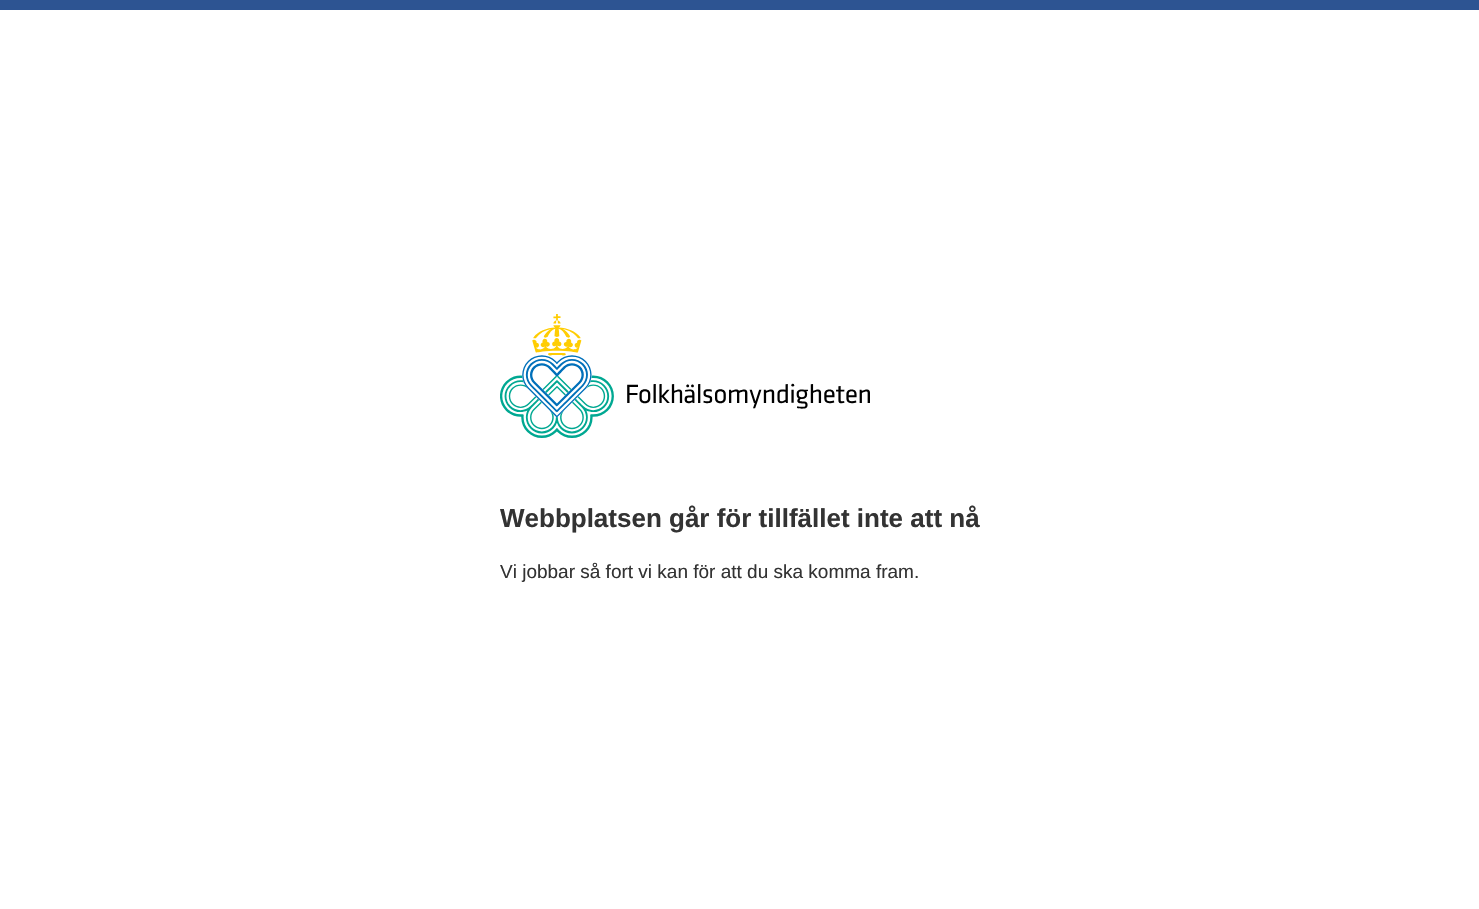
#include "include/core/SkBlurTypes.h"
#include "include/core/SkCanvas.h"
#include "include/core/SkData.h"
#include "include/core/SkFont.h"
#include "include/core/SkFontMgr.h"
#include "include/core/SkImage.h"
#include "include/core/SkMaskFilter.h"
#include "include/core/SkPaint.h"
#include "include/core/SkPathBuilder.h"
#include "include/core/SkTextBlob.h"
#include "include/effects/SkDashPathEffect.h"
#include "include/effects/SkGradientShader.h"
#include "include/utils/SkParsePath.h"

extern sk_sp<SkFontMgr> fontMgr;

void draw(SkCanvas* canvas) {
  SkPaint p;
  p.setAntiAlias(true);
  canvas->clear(SK_ColorWHITE);
  p.setColor(SkColorSetRGB(45, 84, 146));
  canvas->drawRect(SkRect::MakeLTRB(0, 0, 1479, 10), p);
  canvas->drawImageRect(SkImages::DeferredFromEncodedData(SkData::MakeFromFileName("images/1.png")), SkRect::MakeLTRB(500, 314, 870, 438), SkSamplingOptions());
  SkFont font1(fontMgr->matchFamilyStyle("Liberation Sans", SkFontStyle::Bold()), 26);
  font1.setSubpixel(true);
  p.setColor(SkColorSetRGB(51, 51, 51));
  canvas->drawString("Webbplatsen går för tillfället inte att nå", 500, 527, font1, p);
  SkFont font2(fontMgr->matchFamilyStyle("Liberation Sans", SkFontStyle::Normal()), 19);
  font2.setSubpixel(true);
  canvas->drawString("Vi jobbar så fort vi kan för att du ska komma fram.", 500, 578, font2, p);
}
